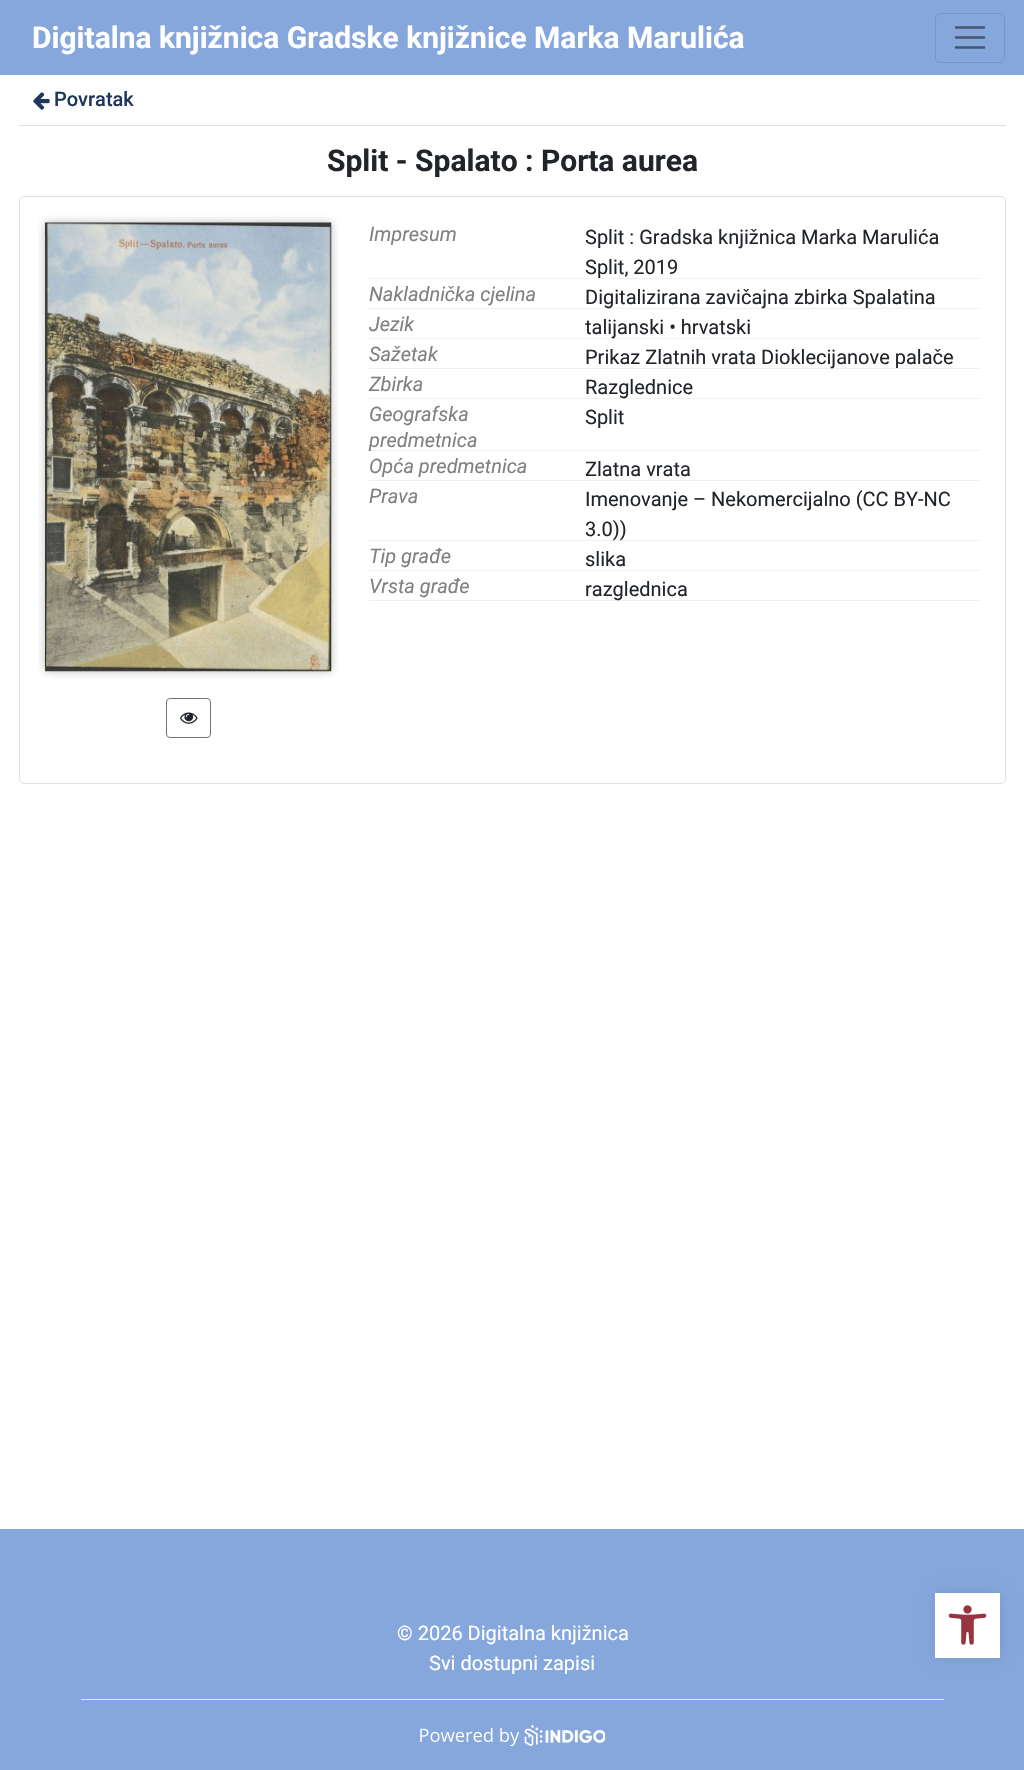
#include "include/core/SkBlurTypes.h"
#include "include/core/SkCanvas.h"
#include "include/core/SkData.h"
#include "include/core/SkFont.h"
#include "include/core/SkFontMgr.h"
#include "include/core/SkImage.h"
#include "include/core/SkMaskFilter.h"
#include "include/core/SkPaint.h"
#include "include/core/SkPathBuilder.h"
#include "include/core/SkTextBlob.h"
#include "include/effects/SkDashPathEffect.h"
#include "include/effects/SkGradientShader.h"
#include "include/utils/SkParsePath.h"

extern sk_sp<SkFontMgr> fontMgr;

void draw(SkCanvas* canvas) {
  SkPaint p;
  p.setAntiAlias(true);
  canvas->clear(SK_ColorWHITE);
  p.setColor(SkColorSetRGB(133, 167, 220));
  canvas->drawRect(SkRect::MakeLTRB(0, 0, 1024, 75), p);
  p.setStyle(SkPaint::kStroke_Style);
  p.setStrokeWidth(1);
  p.setColor(SkColorSetRGB(120, 150, 198));
  canvas->drawRoundRect(SkRect::MakeLTRB(935.5f, 13.5f, 1004.5f, 62.5f), 4.5f, 4.5f, p);
  p.setStrokeWidth(2.5f);
  p.setStrokeCap(SkPaint::kRound_Cap);
  p.setColor(SkColorSetRGB(67, 84, 110));
  canvas->drawPath(SkPathBuilder().moveTo(956, 27.5f).lineTo(984, 27.5f).moveTo(956, 37.5f).lineTo(984, 37.5f).moveTo(956, 47.5f).lineTo(984, 47.5f).detach(), p);
  p.setStyle(SkPaint::kFill_Style);
  p.setColor(SkColorSetRGB(223, 223, 223));
  canvas->drawRect(SkRect::MakeLTRB(19, 125, 1006, 126), p);
  canvas->drawImageRect(SkImages::DeferredFromEncodedData(SkData::MakeFromFileName("images/1.png")), SkRect::MakeLTRB(33, 92, 50, 110), SkSamplingOptions());
  p.setStyle(SkPaint::kStroke_Style);
  p.setStrokeWidth(1);
  p.setStrokeCap(SkPaint::kButt_Cap);
  canvas->drawRoundRect(SkRect::MakeLTRB(19.5f, 196.5f, 1005.5f, 783.5f), 4.5f, 4.5f, p);
  canvas->drawImageRect(SkImages::DeferredFromEncodedData(SkData::MakeFromFileName("images/2.png")), SkRect::MakeLTRB(38, 215, 339, 679), SkSamplingOptions());
  p.setColor(SkColorSetRGB(108, 117, 125));
  canvas->drawRoundRect(SkRect::MakeLTRB(166.5f, 698.5f, 210.5f, 737.5f), 3.5f, 3.5f, p);
  canvas->drawImageRect(SkImages::DeferredFromEncodedData(SkData::MakeFromFileName("images/3.png")), SkRect::MakeLTRB(180, 712, 198, 724), SkSamplingOptions());
  p.setStyle(SkPaint::kFill_Style);
  p.setColor(SkColorSetRGB(240, 240, 240));
  canvas->drawRect(SkRect::MakeLTRB(369, 278, 980, 279), p);
  canvas->drawRect(SkRect::MakeLTRB(369, 308, 980, 309), p);
  canvas->drawRect(SkRect::MakeLTRB(369, 338, 980, 339), p);
  canvas->drawRect(SkRect::MakeLTRB(369, 368, 980, 369), p);
  canvas->drawRect(SkRect::MakeLTRB(369, 398, 980, 399), p);
  canvas->drawRect(SkRect::MakeLTRB(369, 450, 980, 451), p);
  canvas->drawRect(SkRect::MakeLTRB(369, 480, 980, 481), p);
  canvas->drawRect(SkRect::MakeLTRB(369, 540, 980, 541), p);
  canvas->drawRect(SkRect::MakeLTRB(369, 570, 980, 571), p);
  canvas->drawRect(SkRect::MakeLTRB(369, 600, 980, 601), p);
  p.setColor(SkColorSetRGB(133, 167, 220));
  canvas->drawRect(SkRect::MakeLTRB(0, 1529, 1024, 1770), p);
  p.setColor(SkColorSetRGB(230, 230, 230));
  canvas->drawRect(SkRect::MakeLTRB(81, 1699, 944, 1700), p);
  canvas->drawImageRect(SkImages::DeferredFromEncodedData(SkData::MakeFromFileName("images/4.png")), SkRect::MakeLTRB(420, 1725, 605, 1746), SkSamplingOptions());
  p.setColor(SkColorSetARGB(26, 0, 0, 0));
  p.setMaskFilter(SkMaskFilter::MakeBlur(kNormal_SkBlurStyle, 6));
  canvas->drawRect(SkRect::MakeLTRB(935, 1593, 1000, 1658), p);
  p.setMaskFilter(nullptr);
  p.setColor(SK_ColorWHITE);
  canvas->drawRect(SkRect::MakeLTRB(935, 1593, 1000, 1658), p);
  canvas->drawImageRect(SkImages::DeferredFromEncodedData(SkData::MakeFromFileName("images/5.png")), SkRect::MakeLTRB(948, 1605, 987, 1645), SkSamplingOptions());
  SkFont font1(fontMgr->matchFamilyStyle("Roboto", SkFontStyle::Bold()), 30);
  font1.setSubpixel(true);
  canvas->drawString("Digitalna knjižnica Gradske knjižnice Marka Marulića", 32, 48, font1, p);
  SkFont font2(fontMgr->matchFamilyStyle("Roboto", SkFontStyle(500, SkFontStyle::kNormal_Width, SkFontStyle::kUpright_Slant)), 20);
  font2.setSubpixel(true);
  p.setColor(SkColorSetRGB(31, 54, 92));
  canvas->drawString("Povratak", 54, 106, font2, p);
  p.setColor(SkColorSetRGB(33, 37, 41));
  canvas->drawString("Split - Spalato : Porta aurea", 327, 171, font1, p);
  SkFont font3(fontMgr->matchFamilyStyle("Roboto", SkFontStyle::Italic()), 20);
  font3.setSubpixel(true);
  p.setColor(SkColorSetRGB(128, 128, 128));
  canvas->drawString("Impresum", 369, 241, font3, p);
  SkFont font4(fontMgr->matchFamilyStyle("Roboto", SkFontStyle::Normal()), 20);
  font4.setSubpixel(true);
  p.setColor(SkColorSetRGB(33, 37, 41));
  canvas->drawString("Split : Gradska knjižnica Marka Marulića", 585, 244, font4, p);
  canvas->drawString("Split, 2019", 585, 274, font4, p);
  p.setColor(SkColorSetRGB(128, 128, 128));
  canvas->drawString("Nakladnička cjelina", 369, 301, font3, p);
  p.setColor(SkColorSetRGB(33, 37, 41));
  canvas->drawString("Digitalizirana zavičajna zbirka Spalatina", 585, 304, font4, p);
  p.setColor(SkColorSetRGB(128, 128, 128));
  canvas->drawString("Jezik", 369, 331, font3, p);
  p.setColor(SkColorSetRGB(33, 37, 41));
  canvas->drawString("talijanski • hrvatski", 585, 334, font4, p);
  p.setColor(SkColorSetRGB(128, 128, 128));
  canvas->drawString("Sažetak", 369, 361, font3, p);
  p.setColor(SkColorSetRGB(33, 37, 41));
  canvas->drawString("Prikaz Zlatnih vrata Dioklecijanove palače", 585, 364, font4, p);
  p.setColor(SkColorSetRGB(128, 128, 128));
  canvas->drawString("Zbirka", 369, 391, font3, p);
  p.setColor(SkColorSetRGB(33, 37, 41));
  canvas->drawString("Razglednice", 585, 394, font4, p);
  p.setColor(SkColorSetRGB(128, 128, 128));
  canvas->drawString("Geografska", 369, 421, font3, p);
  canvas->drawString("predmetnica", 369, 447, font3, p);
  p.setColor(SkColorSetRGB(33, 37, 41));
  canvas->drawString("Split", 585, 424, font4, p);
  p.setColor(SkColorSetRGB(128, 128, 128));
  canvas->drawString("Opća predmetnica", 369, 473, font3, p);
  p.setColor(SkColorSetRGB(33, 37, 41));
  canvas->drawString("Zlatna vrata", 585, 476, font4, p);
  p.setColor(SkColorSetRGB(128, 128, 128));
  canvas->drawString("Prava", 369, 503, font3, p);
  p.setColor(SkColorSetRGB(33, 37, 41));
  canvas->drawString("Imenovanje – Nekomercijalno (CC BY-NC", 585, 506, font4, p);
  canvas->drawString("3.0))", 585, 536, font4, p);
  p.setColor(SkColorSetRGB(128, 128, 128));
  canvas->drawString("Tip građe", 369, 563, font3, p);
  p.setColor(SkColorSetRGB(33, 37, 41));
  canvas->drawString("slika", 585, 566, font4, p);
  p.setColor(SkColorSetRGB(128, 128, 128));
  canvas->drawString("Vrsta građe", 369, 593, font3, p);
  p.setColor(SkColorSetRGB(33, 37, 41));
  canvas->drawString("razglednica", 585, 596, font4, p);
  p.setColor(SK_ColorWHITE);
  canvas->drawString("© 2026 Digitalna knjižnica", 397, 1640, font4, p);
  canvas->drawString("Svi dostupni zapisi", 429, 1670, font4, p);
}
